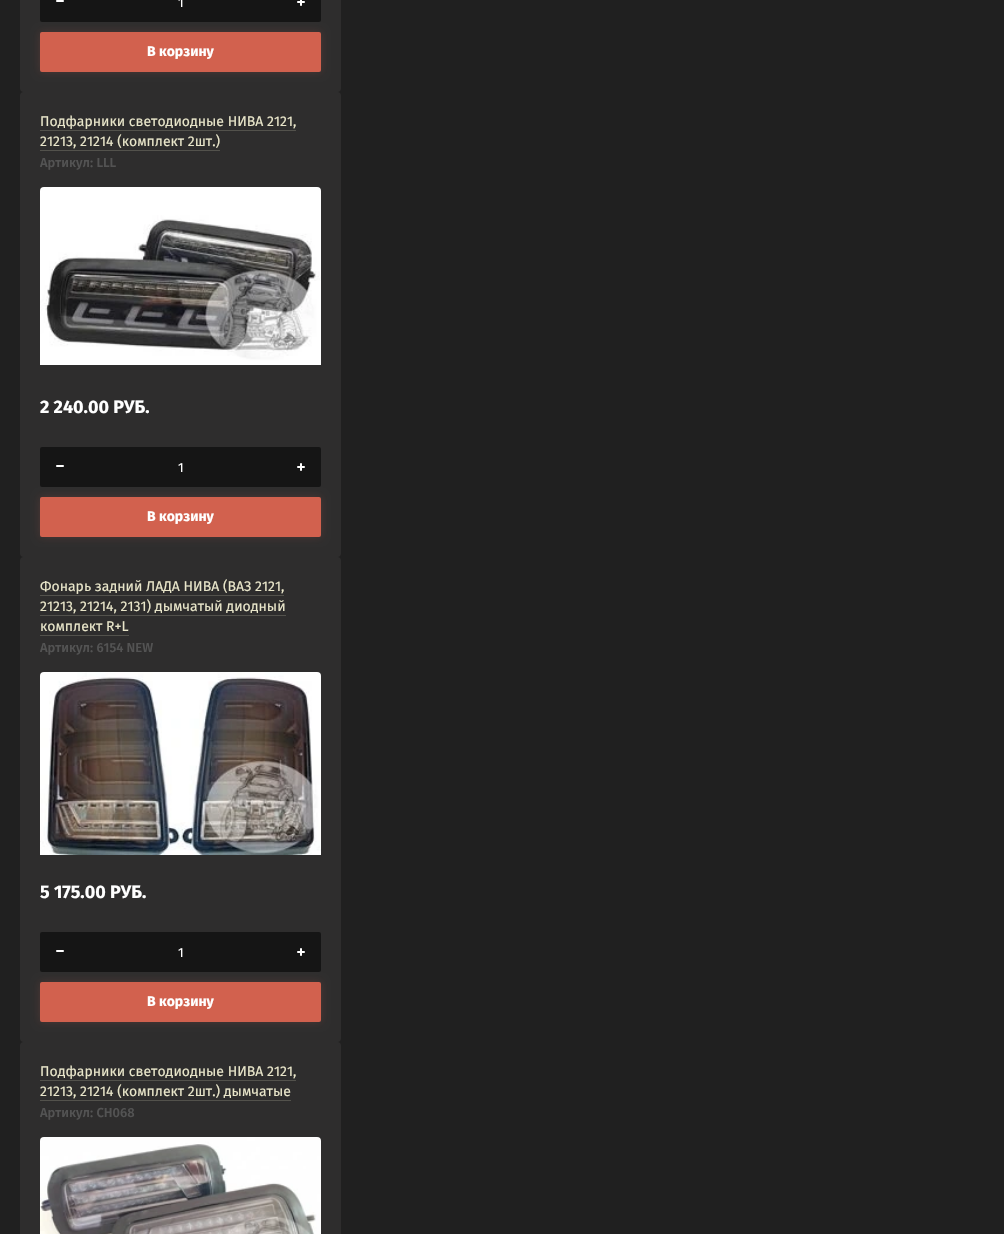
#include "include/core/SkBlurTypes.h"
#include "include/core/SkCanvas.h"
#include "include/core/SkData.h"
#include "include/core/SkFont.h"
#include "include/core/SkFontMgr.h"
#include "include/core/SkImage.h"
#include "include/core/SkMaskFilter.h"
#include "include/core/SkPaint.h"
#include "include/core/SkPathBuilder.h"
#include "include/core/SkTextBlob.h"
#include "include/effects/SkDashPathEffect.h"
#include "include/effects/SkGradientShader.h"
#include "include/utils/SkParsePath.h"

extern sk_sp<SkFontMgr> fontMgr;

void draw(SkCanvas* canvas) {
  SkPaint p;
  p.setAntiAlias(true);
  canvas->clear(SkColorSetRGB(32, 32, 32));
  p.setColor(SkColorSetRGB(46, 45, 45));
  canvas->drawRoundRect(SkRect::MakeLTRB(20, -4, 341, 92), 4, 4, p);
  p.setColor(SkColorSetRGB(21, 21, 21));
  canvas->drawRoundRect(SkRect::MakeLTRB(40, -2, 321, 22), 2, 2, p);
  canvas->drawImageRect(SkImages::DeferredFromEncodedData(SkData::MakeFromFileName("images/1.png")), SkRect::MakeLTRB(56, 0, 64, 2), SkSamplingOptions());
  canvas->drawImageRect(SkImages::DeferredFromEncodedData(SkData::MakeFromFileName("images/2.png")), SkRect::MakeLTRB(297, 0, 305, 6), SkSamplingOptions());
  p.setColor(SkColorSetARGB(51, 210, 97, 78));
  p.setMaskFilter(SkMaskFilter::MakeBlur(kNormal_SkBlurStyle, 4));
  canvas->drawRoundRect(SkRect::MakeLTRB(40, 32, 321, 72), 2, 2, p);
  p.setMaskFilter(nullptr);
  p.setColor(SkColorSetRGB(210, 97, 78));
  canvas->drawRoundRect(SkRect::MakeLTRB(40, 32, 321, 72), 2, 2, p);
  p.setColor(SkColorSetRGB(46, 45, 45));
  canvas->drawRoundRect(SkRect::MakeLTRB(20, 92, 341, 557), 4, 4, p);
  p.setColor(SkColorSetRGB(83, 82, 76));
  canvas->drawRect(SkRect::MakeLTRB(40, 130, 296, 131), p);
  canvas->drawRect(SkRect::MakeLTRB(40, 150, 220, 151), p);
  canvas->drawImageRect(SkImages::DeferredFromEncodedData(SkData::MakeFromFileName("images/3.png")), SkRect::MakeLTRB(40, 187, 321, 365), SkSamplingOptions());
  p.setColor(SkColorSetRGB(21, 21, 21));
  canvas->drawRoundRect(SkRect::MakeLTRB(40, 447, 321, 487), 2, 2, p);
  canvas->drawImageRect(SkImages::DeferredFromEncodedData(SkData::MakeFromFileName("images/1.png")), SkRect::MakeLTRB(56, 465, 64, 467), SkSamplingOptions());
  canvas->drawImageRect(SkImages::DeferredFromEncodedData(SkData::MakeFromFileName("images/4.png")), SkRect::MakeLTRB(297, 463, 305, 471), SkSamplingOptions());
  p.setColor(SkColorSetARGB(51, 210, 97, 78));
  p.setMaskFilter(SkMaskFilter::MakeBlur(kNormal_SkBlurStyle, 4));
  canvas->drawRoundRect(SkRect::MakeLTRB(40, 497, 321, 537), 2, 2, p);
  p.setMaskFilter(nullptr);
  p.setColor(SkColorSetRGB(210, 97, 78));
  canvas->drawRoundRect(SkRect::MakeLTRB(40, 497, 321, 537), 2, 2, p);
  p.setColor(SkColorSetRGB(46, 45, 45));
  canvas->drawRoundRect(SkRect::MakeLTRB(20, 557, 341, 1042), 4, 4, p);
  p.setColor(SkColorSetRGB(83, 82, 76));
  canvas->drawRect(SkRect::MakeLTRB(40, 595, 284, 596), p);
  canvas->drawRect(SkRect::MakeLTRB(40, 615, 286, 616), p);
  canvas->drawRect(SkRect::MakeLTRB(40, 635, 129, 636), p);
  canvas->drawImageRect(SkImages::DeferredFromEncodedData(SkData::MakeFromFileName("images/5.png")), SkRect::MakeLTRB(40, 672, 321, 855), SkSamplingOptions());
  p.setColor(SkColorSetRGB(21, 21, 21));
  canvas->drawRoundRect(SkRect::MakeLTRB(40, 932, 321, 972), 2, 2, p);
  canvas->drawImageRect(SkImages::DeferredFromEncodedData(SkData::MakeFromFileName("images/1.png")), SkRect::MakeLTRB(56, 950, 64, 952), SkSamplingOptions());
  canvas->drawImageRect(SkImages::DeferredFromEncodedData(SkData::MakeFromFileName("images/4.png")), SkRect::MakeLTRB(297, 948, 305, 956), SkSamplingOptions());
  p.setColor(SkColorSetARGB(51, 210, 97, 78));
  p.setMaskFilter(SkMaskFilter::MakeBlur(kNormal_SkBlurStyle, 4));
  canvas->drawRoundRect(SkRect::MakeLTRB(40, 982, 321, 1022), 2, 2, p);
  p.setMaskFilter(nullptr);
  p.setColor(SkColorSetRGB(210, 97, 78));
  canvas->drawRoundRect(SkRect::MakeLTRB(40, 982, 321, 1022), 2, 2, p);
  p.setColor(SkColorSetRGB(46, 45, 45));
  canvas->drawRoundRect(SkRect::MakeLTRB(20, 1042, 341, 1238), 4, 4, p);
  p.setColor(SkColorSetRGB(83, 82, 76));
  canvas->drawRect(SkRect::MakeLTRB(40, 1080, 296, 1081), p);
  canvas->drawRect(SkRect::MakeLTRB(40, 1100, 291, 1101), p);
  canvas->drawImageRect(SkImages::DeferredFromEncodedData(SkData::MakeFromFileName("images/6.png")), SkRect::MakeLTRB(40, 1137, 321, 1234), SkSamplingOptions());
  SkFont font1(fontMgr->matchFamilyStyle("Fira Sans", SkFontStyle::Normal()), 13);
  font1.setSubpixel(true);
  p.setColor(SK_ColorWHITE);
  canvas->drawString("1", 178, 7, font1, p);
  SkFont font2(fontMgr->matchFamilyStyle("Fira Sans", SkFontStyle::Bold()), 14);
  font2.setSubpixel(true);
  canvas->drawString("В корзину", 147, 56, font2, p);
  SkFont font3(fontMgr->matchFamilyStyle("Fira Sans", SkFontStyle::Normal()), 14);
  font3.setSubpixel(true);
  p.setColor(SkColorSetRGB(233, 230, 202));
  canvas->drawString("Подфарники светодиодные НИВА 2121,", 40, 126, font3, p);
  canvas->drawString("21213, 21214 (комплект 2шт.)", 40, 146, font3, p);
  SkFont font4(fontMgr->matchFamilyStyle("Fira Sans", SkFontStyle(500, SkFontStyle::kNormal_Width, SkFontStyle::kUpright_Slant)), 13);
  font4.setSubpixel(true);
  p.setColor(SkColorSetRGB(83, 83, 83));
  canvas->drawString("Артикул: LLL", 40, 167, font4, p);
  SkFont font5(fontMgr->matchFamilyStyle("Fira Sans", SkFontStyle::Bold()), 18);
  font5.setSubpixel(true);
  p.setColor(SK_ColorWHITE);
  canvas->drawString("2 240.00 РУБ.", 40, 413, font5, p);
  canvas->drawString("1", 178, 472, font1, p);
  canvas->drawString("В корзину", 147, 521, font2, p);
  p.setColor(SkColorSetRGB(233, 230, 202));
  canvas->drawString("Фонарь задний ЛАДА НИВА (ВАЗ 2121,", 40, 591, font3, p);
  canvas->drawString("21213, 21214, 2131) дымчатый диодный", 40, 611, font3, p);
  canvas->drawString("комплект R+L", 40, 631, font3, p);
  p.setColor(SkColorSetRGB(83, 83, 83));
  canvas->drawString("Артикул: 6154 NEW", 40, 652, font4, p);
  p.setColor(SK_ColorWHITE);
  canvas->drawString("5 175.00 РУБ.", 40, 898, font5, p);
  canvas->drawString("1", 178, 957, font1, p);
  canvas->drawString("В корзину", 147, 1006, font2, p);
  p.setColor(SkColorSetRGB(233, 230, 202));
  canvas->drawString("Подфарники светодиодные НИВА 2121,", 40, 1076, font3, p);
  canvas->drawString("21213, 21214 (комплект 2шт.) дымчатые", 40, 1096, font3, p);
  p.setColor(SkColorSetRGB(83, 83, 83));
  canvas->drawString("Артикул: CH068", 40, 1117, font4, p);
}
